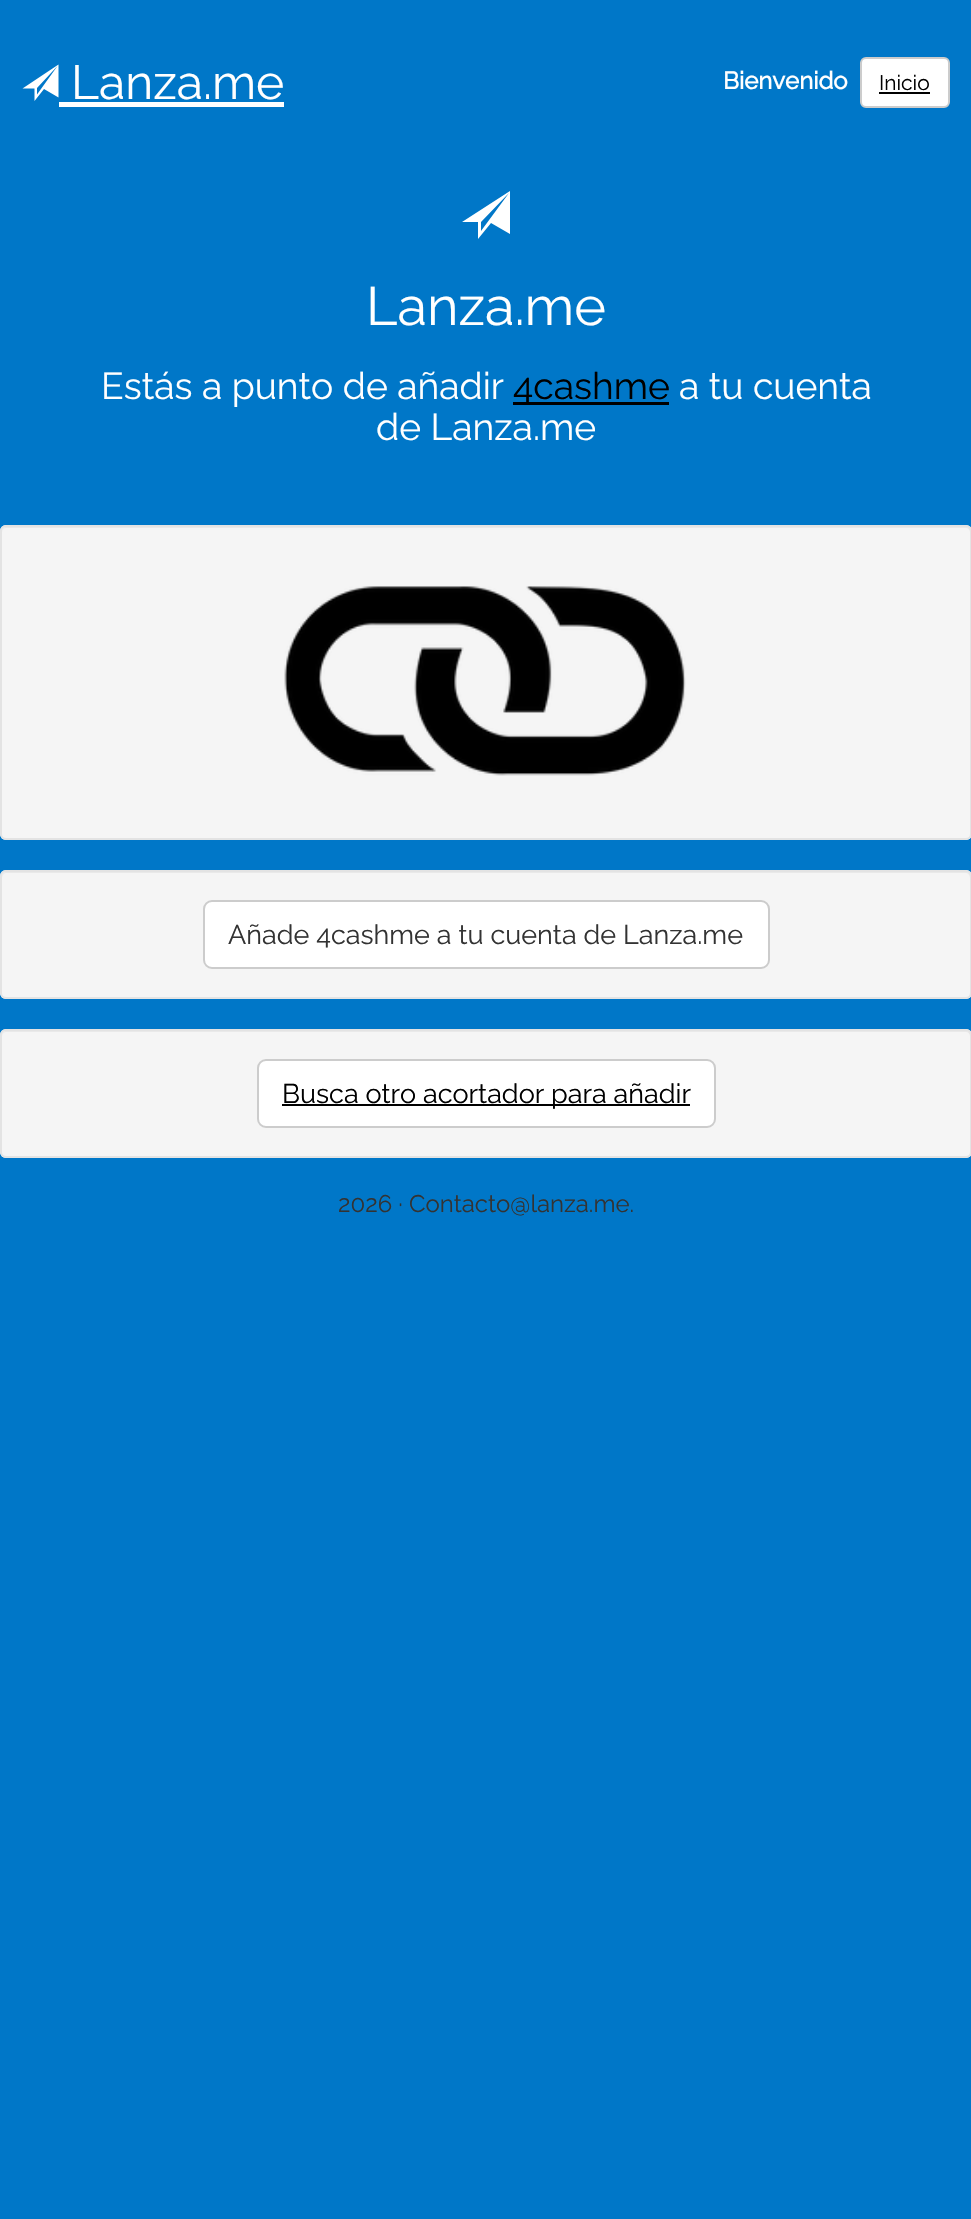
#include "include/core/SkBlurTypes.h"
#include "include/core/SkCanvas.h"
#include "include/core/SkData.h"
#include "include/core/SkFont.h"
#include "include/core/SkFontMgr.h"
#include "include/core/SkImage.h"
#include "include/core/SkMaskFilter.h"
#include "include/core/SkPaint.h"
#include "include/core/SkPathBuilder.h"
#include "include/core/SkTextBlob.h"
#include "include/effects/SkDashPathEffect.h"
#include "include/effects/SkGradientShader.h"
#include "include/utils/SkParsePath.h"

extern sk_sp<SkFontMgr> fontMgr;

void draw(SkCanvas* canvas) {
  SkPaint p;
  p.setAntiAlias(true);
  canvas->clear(SkColorSetRGB(0, 119, 200));
  p.setColor(SK_ColorWHITE);
  canvas->drawPath(SkPathBuilder().moveTo(58.5f, 97.5f).lineTo(44, 89).lineTo(34.5f, 101).lineTo(34.5f, 88.5f).lineTo(22.5f, 88.5f).lineTo(58.5f, 64.5f).close().moveTo(37, 88).lineTo(37, 94.5f).lineTo(57.5f, 66).close().detach(), p);
  canvas->drawRect(SkRect::MakeLTRB(59, 102, 284, 107), p);
  canvas->drawRoundRect(SkRect::MakeLTRB(861, 58, 949, 107), 5, 5, p);
  p.setStyle(SkPaint::kStroke_Style);
  p.setStrokeWidth(2);
  p.setColor(SkColorSetRGB(204, 204, 204));
  canvas->drawRoundRect(SkRect::MakeLTRB(861, 58, 949, 107), 5, 5, p);
  p.setStyle(SkPaint::kFill_Style);
  p.setColor(SK_ColorBLACK);
  canvas->drawRect(SkRect::MakeLTRB(879, 92, 930, 94), p);
  p.setColor(SK_ColorWHITE);
  canvas->drawPath(SkPathBuilder().moveTo(510, 234).lineTo(491, 223).lineTo(478, 239).lineTo(478, 222).lineTo(462, 222).lineTo(510, 191).close().moveTo(481, 222).lineTo(481, 231).lineTo(509, 193).close().detach(), p);
  p.setColor(SK_ColorBLACK);
  canvas->drawRect(SkRect::MakeLTRB(513, 402, 669, 405), p);
  p.setColor(SkColorSetRGB(245, 245, 245));
  canvas->drawRoundRect(SkRect::MakeLTRB(0, 525, 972, 840), 6, 6, p);
  p.setColor(SkColorSetRGB(233, 233, 233));
  canvas->drawPath(SkPathBuilder().moveTo(6, 528).lineTo(966, 528).cubicTo(968, 528, 970, 530, 970, 532).lineTo(970, 837).cubicTo(971, 836, 971, 835, 971, 834).lineTo(971, 532).cubicTo(971, 529, 969, 527, 966, 527).lineTo(7, 527).cubicTo(4, 527, 2, 529, 2, 532).cubicTo(2, 530, 4, 528, 6, 528).close().detach(), p);
  p.setStyle(SkPaint::kStroke_Style);
  p.setColor(SkColorSetRGB(227, 227, 227));
  canvas->drawRoundRect(SkRect::MakeLTRB(1, 526, 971, 839), 5, 5, p);
  canvas->drawImageRect(SkImages::DeferredFromEncodedData(SkData::MakeFromFileName("images/1.png")), SkRect::MakeLTRB(284, 586, 686, 776), SkSamplingOptions());
  p.setStyle(SkPaint::kFill_Style);
  p.setColor(SkColorSetRGB(245, 245, 245));
  canvas->drawRoundRect(SkRect::MakeLTRB(0, 870, 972, 999), 6, 6, p);
  p.setColor(SkColorSetRGB(233, 233, 233));
  canvas->drawPath(SkPathBuilder().moveTo(6, 873).lineTo(966, 873).cubicTo(968, 873, 970, 875, 970, 878).lineTo(970, 994).lineTo(969, 997).cubicTo(970, 996, 971, 994, 971, 993).lineTo(971, 877).cubicTo(971, 874, 969, 872, 966, 872).lineTo(7, 872).cubicTo(4, 872, 2, 874, 2, 877).lineTo(2, 878).cubicTo(2, 875, 4, 873, 6, 873).close().detach(), p);
  p.setStyle(SkPaint::kStroke_Style);
  p.setColor(SkColorSetRGB(227, 227, 227));
  canvas->drawRoundRect(SkRect::MakeLTRB(1, 871, 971, 998), 5, 5, p);
  p.setStyle(SkPaint::kFill_Style);
  p.setColor(SK_ColorWHITE);
  canvas->drawRoundRect(SkRect::MakeLTRB(204, 901, 769, 968), 8, 8, p);
  p.setStyle(SkPaint::kStroke_Style);
  p.setColor(SkColorSetRGB(204, 204, 204));
  canvas->drawRoundRect(SkRect::MakeLTRB(204, 901, 769, 968), 8, 8, p);
  p.setStyle(SkPaint::kFill_Style);
  p.setColor(SkColorSetRGB(245, 245, 245));
  canvas->drawRoundRect(SkRect::MakeLTRB(0, 1029, 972, 1158), 6, 6, p);
  p.setColor(SkColorSetRGB(233, 233, 233));
  canvas->drawPath(SkPathBuilder().moveTo(6, 1032).lineTo(966, 1032).cubicTo(968, 1032, 970, 1034, 970, 1036).lineTo(970, 1155).cubicTo(971, 1154, 971, 1153, 971, 1152).lineTo(971, 1036).cubicTo(971, 1033, 969, 1031, 966, 1031).lineTo(7, 1031).cubicTo(4, 1031, 2, 1033, 2, 1036).cubicTo(2, 1034, 4, 1032, 6, 1032).close().detach(), p);
  p.setStyle(SkPaint::kStroke_Style);
  p.setColor(SkColorSetRGB(227, 227, 227));
  canvas->drawRoundRect(SkRect::MakeLTRB(1, 1030, 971, 1157), 5, 5, p);
  p.setStyle(SkPaint::kFill_Style);
  p.setColor(SK_ColorWHITE);
  canvas->drawRoundRect(SkRect::MakeLTRB(258, 1060, 715, 1127), 8, 8, p);
  p.setStyle(SkPaint::kStroke_Style);
  p.setColor(SkColorSetRGB(204, 204, 204));
  canvas->drawRoundRect(SkRect::MakeLTRB(258, 1060, 715, 1127), 8, 8, p);
  p.setStyle(SkPaint::kFill_Style);
  p.setColor(SK_ColorBLACK);
  canvas->drawRect(SkRect::MakeLTRB(282, 1104, 690, 1106), p);
  SkFont font1(fontMgr->matchFamilyStyle("Raleway", SkFontStyle(100, SkFontStyle::kNormal_Width, SkFontStyle::kUpright_Slant)), 48);
  font1.setSubpixel(true);
  p.setColor(SK_ColorWHITE);
  canvas->drawString("Lanza.me", 71, 99, font1, p);
  SkFont font2(fontMgr->matchFamilyStyle("Raleway", SkFontStyle::Bold()), 24);
  font2.setSubpixel(true);
  canvas->drawString("Bienvenido", 723, 89, font2, p);
  SkFont font3(fontMgr->matchFamilyStyle("Raleway", SkFontStyle(100, SkFontStyle::kNormal_Width, SkFontStyle::kUpright_Slant)), 21);
  font3.setSubpixel(true);
  p.setColor(SK_ColorBLACK);
  canvas->drawString("Inicio", 879, 90, font3, p);
  SkFont font4(fontMgr->matchFamilyStyle("Raleway", SkFontStyle(100, SkFontStyle::kNormal_Width, SkFontStyle::kUpright_Slant)), 54);
  font4.setSubpixel(true);
  p.setColor(SK_ColorWHITE);
  canvas->drawString("Lanza.me", 366, 325, font4, p);
  SkFont font5(fontMgr->matchFamilyStyle("Raleway", SkFontStyle(100, SkFontStyle::kNormal_Width, SkFontStyle::kUpright_Slant)), 37.25f);
  font5.setSubpixel(true);
  canvas->drawString("Estás a punto de añadir", 101, 399, font5, p);
  p.setColor(SK_ColorBLACK);
  canvas->drawString("4cashme", 513, 399, font5, p);
  p.setColor(SK_ColorWHITE);
  canvas->drawString("a tu cuenta", 679, 399, font5, p);
  canvas->drawString("de Lanza.me", 376, 440, font5, p);
  SkFont font6(fontMgr->matchFamilyStyle("Raleway", SkFontStyle(100, SkFontStyle::kNormal_Width, SkFontStyle::kUpright_Slant)), 27);
  font6.setSubpixel(true);
  p.setColor(SkColorSetRGB(51, 51, 51));
  canvas->drawString("Añade 4cashme a tu cuenta de Lanza.me", 228, 944, font6, p);
  p.setColor(SK_ColorBLACK);
  canvas->drawString("Busca otro acortador para añadir", 282, 1103, font6, p);
  SkFont font7(fontMgr->matchFamilyStyle("Raleway", SkFontStyle(100, SkFontStyle::kNormal_Width, SkFontStyle::kUpright_Slant)), 24);
  font7.setSubpixel(true);
  p.setColor(SkColorSetRGB(51, 51, 51));
  canvas->drawString("2026 · Contacto@lanza.me.", 338, 1212, font7, p);
}
